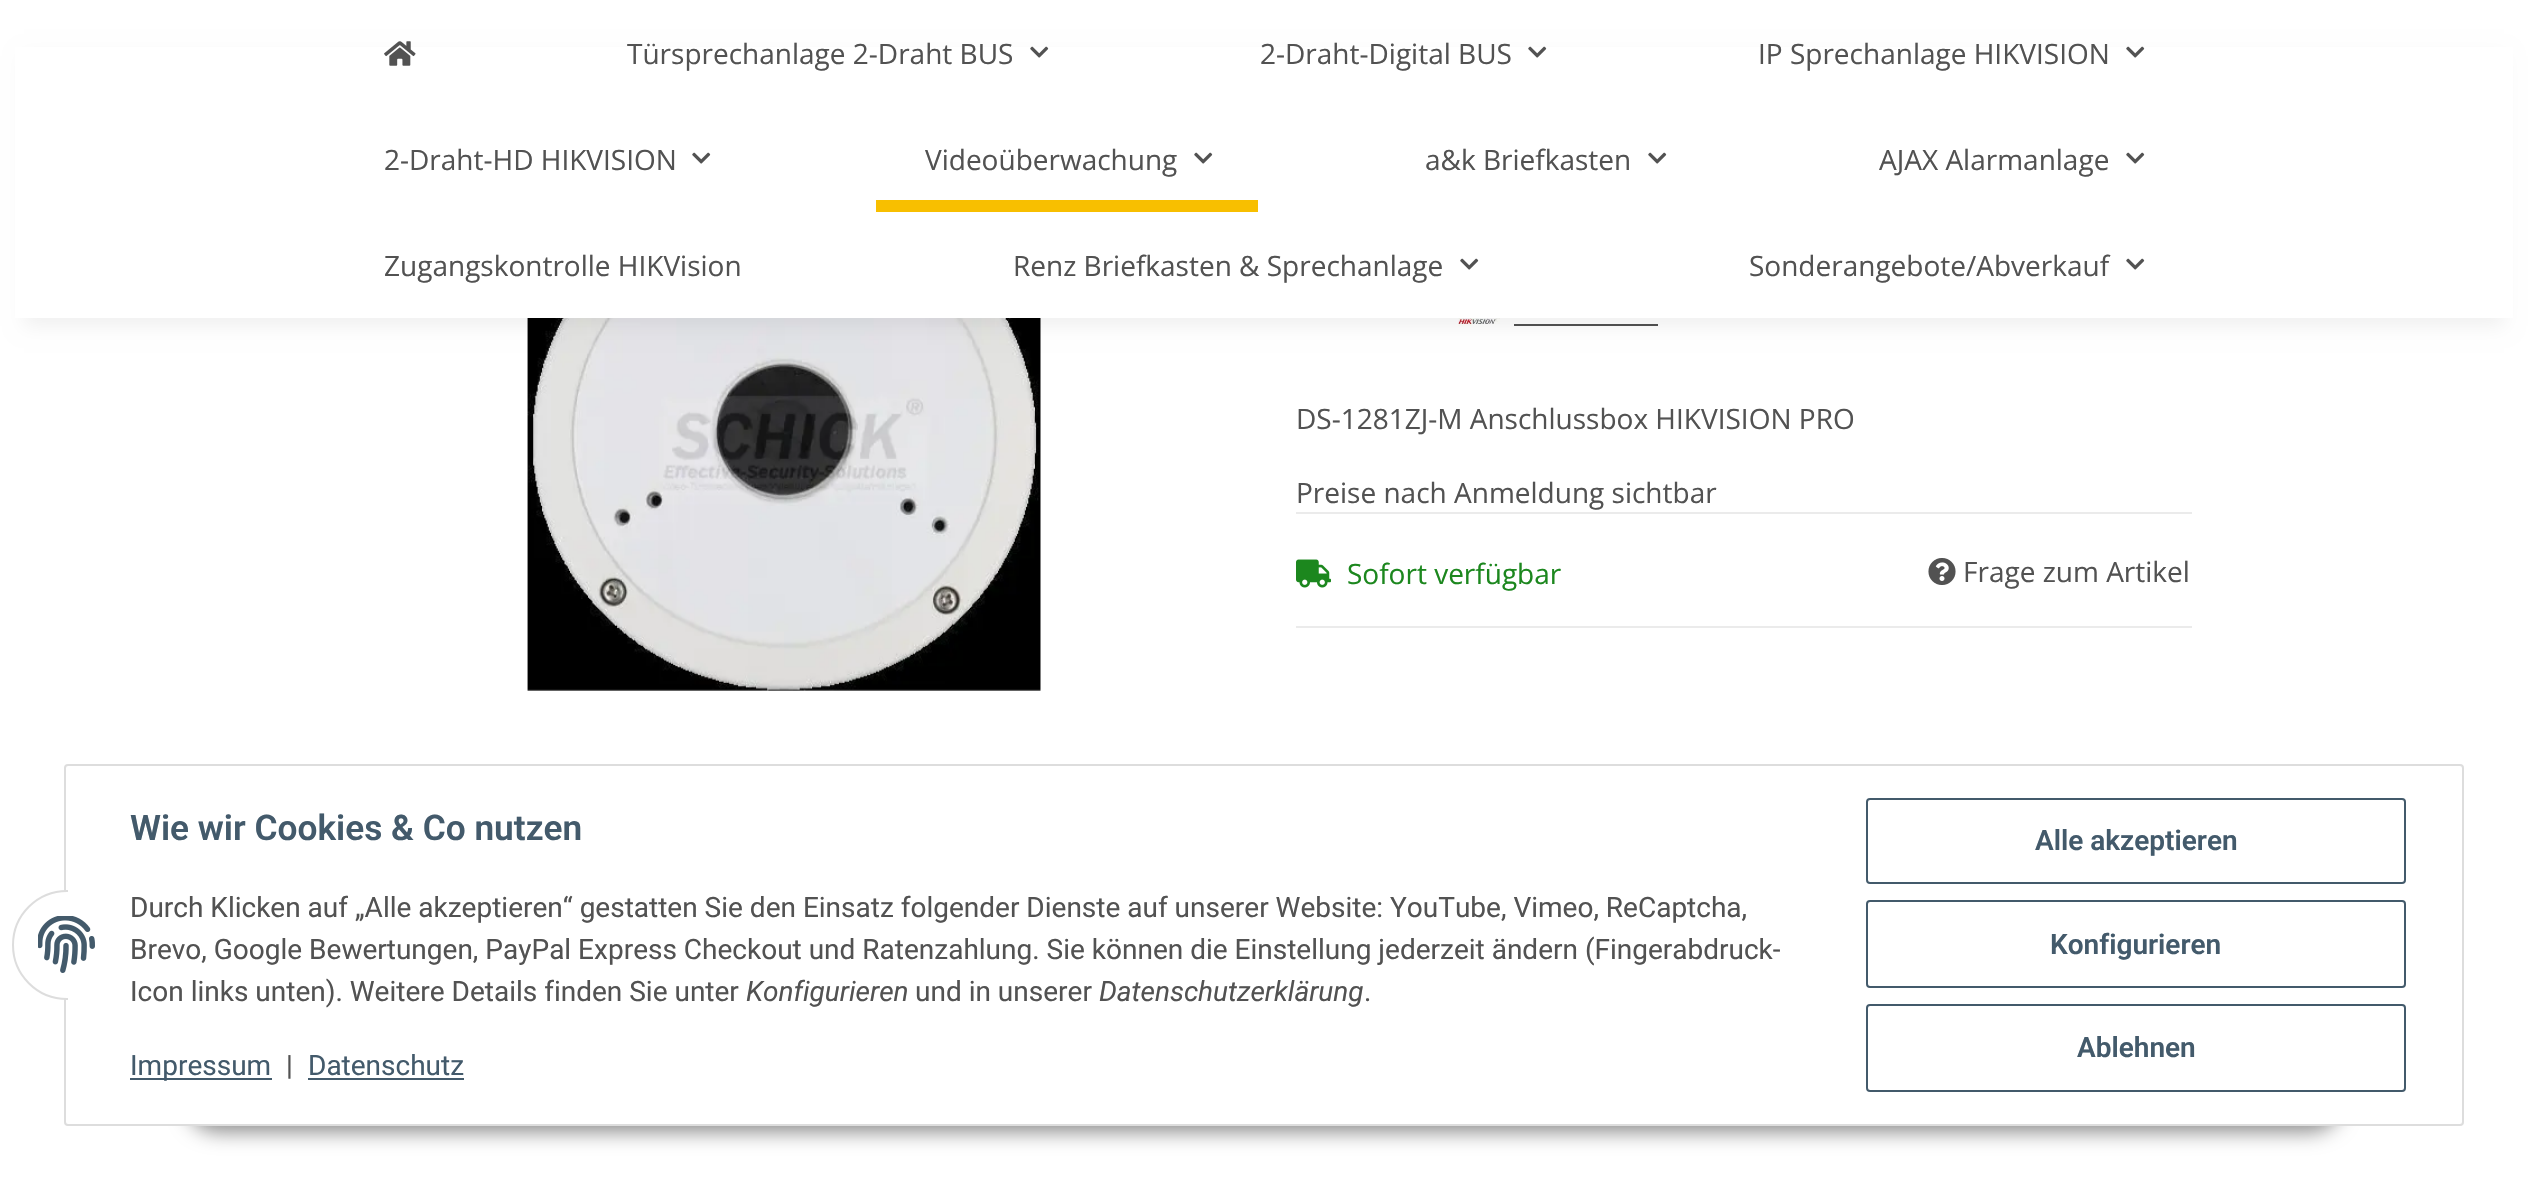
#include "include/core/SkBlurTypes.h"
#include "include/core/SkCanvas.h"
#include "include/core/SkData.h"
#include "include/core/SkFont.h"
#include "include/core/SkFontMgr.h"
#include "include/core/SkImage.h"
#include "include/core/SkMaskFilter.h"
#include "include/core/SkPaint.h"
#include "include/core/SkPathBuilder.h"
#include "include/core/SkTextBlob.h"
#include "include/effects/SkDashPathEffect.h"
#include "include/effects/SkGradientShader.h"
#include "include/utils/SkParsePath.h"

extern sk_sp<SkFontMgr> fontMgr;

void draw(SkCanvas* canvas) {
  SkPaint p;
  p.setAntiAlias(true);
  canvas->clear(SK_ColorWHITE);
  canvas->drawImageRect(SkImages::DeferredFromEncodedData(SkData::MakeFromFileName("images/3.png")), SkRect::MakeLTRB(527, 318, 1041, 691), SkSamplingOptions());
  canvas->drawImageRect(SkImages::DeferredFromEncodedData(SkData::MakeFromFileName("images/4.png")), SkRect::MakeLTRB(1458, 318, 1500, 326), SkSamplingOptions());
  p.setColor(SkColorSetRGB(82, 82, 82));
  canvas->drawRect(SkRect::MakeLTRB(1514, 324, 1658, 326), p);
  p.setColor(SkColorSetARGB(15, 0, 0, 0));
  p.setMaskFilter(SkMaskFilter::MakeBlur(kNormal_SkBlurStyle, 9));
  canvas->drawRect(SkRect::MakeLTRB(24, 56, 2504, 326), p);
  p.setMaskFilter(nullptr);
  p.setColor(SK_ColorWHITE);
  canvas->drawRect(SkRect::MakeLTRB(15, 47, 2513, 318), p);
  canvas->drawImageRect(SkImages::DeferredFromEncodedData(SkData::MakeFromFileName("images/1.png")), SkRect::MakeLTRB(384, 41, 416, 66), SkSamplingOptions());
  canvas->drawImageRect(SkImages::DeferredFromEncodedData(SkData::MakeFromFileName("images/2.png")), SkRect::MakeLTRB(1030, 46, 1049, 58), SkSamplingOptions());
  canvas->drawImageRect(SkImages::DeferredFromEncodedData(SkData::MakeFromFileName("images/2.png")), SkRect::MakeLTRB(1528, 46, 1547, 58), SkSamplingOptions());
  canvas->drawImageRect(SkImages::DeferredFromEncodedData(SkData::MakeFromFileName("images/2.png")), SkRect::MakeLTRB(2126, 46, 2145, 58), SkSamplingOptions());
  canvas->drawImageRect(SkImages::DeferredFromEncodedData(SkData::MakeFromFileName("images/2.png")), SkRect::MakeLTRB(692, 152, 711, 164), SkSamplingOptions());
  canvas->drawImageRect(SkImages::DeferredFromEncodedData(SkData::MakeFromFileName("images/2.png")), SkRect::MakeLTRB(1194, 152, 1213, 164), SkSamplingOptions());
  p.setColor(SkColorSetRGB(248, 191, 0));
  canvas->drawRect(SkRect::MakeLTRB(876, 200, 1258, 212), p);
  canvas->drawImageRect(SkImages::DeferredFromEncodedData(SkData::MakeFromFileName("images/2.png")), SkRect::MakeLTRB(1648, 152, 1667, 164), SkSamplingOptions());
  canvas->drawImageRect(SkImages::DeferredFromEncodedData(SkData::MakeFromFileName("images/2.png")), SkRect::MakeLTRB(2126, 152, 2145, 164), SkSamplingOptions());
  canvas->drawImageRect(SkImages::DeferredFromEncodedData(SkData::MakeFromFileName("images/2.png")), SkRect::MakeLTRB(1460, 258, 1479, 270), SkSamplingOptions());
  canvas->drawImageRect(SkImages::DeferredFromEncodedData(SkData::MakeFromFileName("images/2.png")), SkRect::MakeLTRB(2126, 258, 2145, 270), SkSamplingOptions());
  p.setColor(SkColorSetRGB(235, 235, 235));
  canvas->drawRect(SkRect::MakeLTRB(1296, 512, 2192, 514), p);
  canvas->drawRect(SkRect::MakeLTRB(1296, 626, 2192, 628), p);
  canvas->drawImageRect(SkImages::DeferredFromEncodedData(SkData::MakeFromFileName("images/5.png")), SkRect::MakeLTRB(1296, 559, 1331, 588), SkSamplingOptions());
  canvas->drawImageRect(SkImages::DeferredFromEncodedData(SkData::MakeFromFileName("images/6.png")), SkRect::MakeLTRB(1928, 558, 1956, 585), SkSamplingOptions());
  p.setColor(SkColorSetARGB(115, 0, 0, 0));
  p.setMaskFilter(SkMaskFilter::MakeBlur(kNormal_SkBlurStyle, 10));
  canvas->drawRoundRect(SkRect::MakeLTRB(186, 1068, 2342, 1132), 32, 32, p);
  p.setMaskFilter(nullptr);
  p.setColor(SK_ColorWHITE);
  canvas->drawRoundRect(SkRect::MakeLTRB(65, 765, 2463, 1125), 3, 3, p);
  p.setStyle(SkPaint::kStroke_Style);
  p.setStrokeWidth(2);
  p.setColor(SkColorSetRGB(221, 221, 221));
  canvas->drawRoundRect(SkRect::MakeLTRB(65, 765, 2463, 1125), 3, 3, p);
  p.setStyle(SkPaint::kFill_Style);
  p.setColor(SK_ColorWHITE);
  canvas->drawCircle(67, 945, 54, p);
  p.setStyle(SkPaint::kStroke_Style);
  p.setColor(SkColorSetRGB(221, 221, 221));
  canvas->drawCircle(67, 945, 54, p);
  p.setStyle(SkPaint::kFill_Style);
  p.setColor(SK_ColorWHITE);
  canvas->drawRect(SkRect::MakeLTRB(68, 890, 122, 1000), p);
  canvas->drawImageRect(SkImages::DeferredFromEncodedData(SkData::MakeFromFileName("images/7.png")), SkRect::MakeLTRB(38, 916, 95, 973), SkSamplingOptions());
  p.setColor(SkColorSetRGB(67, 90, 107));
  canvas->drawRect(SkRect::MakeLTRB(130, 1078, 272, 1080), p);
  canvas->drawRect(SkRect::MakeLTRB(308, 1078, 464, 1080), p);
  p.setStyle(SkPaint::kStroke_Style);
  canvas->drawRoundRect(SkRect::MakeLTRB(1867, 799, 2405, 883), 3, 3, p);
  canvas->drawRoundRect(SkRect::MakeLTRB(1867, 901, 2405, 987), 3, 3, p);
  canvas->drawRoundRect(SkRect::MakeLTRB(1867, 1005, 2405, 1091), 3, 3, p);
  SkFont font1(fontMgr->matchFamilyStyle("Open Sans", SkFontStyle::Normal()), 28);
  font1.setSubpixel(true);
  p.setStyle(SkPaint::kFill_Style);
  p.setColor(SkColorSetRGB(82, 82, 82));
  canvas->drawString("Türsprechanlage 2-Draht BUS", 627, 64, font1, p);
  canvas->drawString("2-Draht-Digital BUS", 1260, 64, font1, p);
  canvas->drawString("IP Sprechanlage HIKVISION", 1758, 64, font1, p);
  canvas->drawString("2-Draht-HD HIKVISION", 384, 170, font1, p);
  canvas->drawString("Videoüberwachung", 925, 170, font1, p);
  canvas->drawString("a&k Briefkasten", 1425, 170, font1, p);
  canvas->drawString("AJAX Alarmanlage", 1879, 170, font1, p);
  canvas->drawString("Zugangskontrolle HIKVision", 384, 276, font1, p);
  canvas->drawString("Renz Briefkasten & Sprechanlage", 1013, 276, font1, p);
  canvas->drawString("Sonderangebote/Abverkauf", 1749, 276, font1, p);
  canvas->drawString("DS-1281ZJ-M Anschlussbox HIKVISION PRO", 1296, 429, font1, p);
  canvas->drawString("Preise nach Anmeldung sichtbar", 1296, 503, font1, p);
  p.setColor(SkColorSetRGB(28, 135, 30));
  canvas->drawString("Sofort verfügbar", 1347, 584, font1, p);
  p.setColor(SkColorSetRGB(82, 82, 82));
  canvas->drawString("Frage zum Artikel", 1963, 582, font1, p);
  SkFont font2(fontMgr->matchFamilyStyle("Roboto", SkFontStyle(600, SkFontStyle::kNormal_Width, SkFontStyle::kUpright_Slant)), 35.25f);
  font2.setSubpixel(true);
  p.setColor(SkColorSetRGB(67, 90, 107));
  canvas->drawString("Wie wir Cookies & Co nutzen", 130, 840, font2, p);
  SkFont font3(fontMgr->matchFamilyStyle("Roboto", SkFontStyle::Normal()), 28);
  font3.setSubpixel(true);
  p.setColor(SkColorSetRGB(82, 82, 82));
  canvas->drawString("Durch Klicken auf „Alle akzeptieren“ gestatten Sie den Einsatz folgender Dienste auf unserer Website: YouTube, Vimeo, ReCaptcha,", 130, 917, font3, p);
  canvas->drawString("Brevo, Google Bewertungen, PayPal Express Checkout und Ratenzahlung. Sie können die Einstellung jederzeit ändern (Fingerabdruck-", 130, 959, font3, p);
  canvas->drawString("Icon links unten). Weitere Details finden Sie unter", 130, 1001, font3, p);
  SkFont font4(fontMgr->matchFamilyStyle("Roboto", SkFontStyle::Italic()), 28);
  font4.setSubpixel(true);
  canvas->drawString("Konfigurieren", 746, 1001, font4, p);
  canvas->drawString("und in unserer", 915, 1001, font3, p);
  canvas->drawString("Datenschutzerklärung", 1099, 1001, font4, p);
  canvas->drawString(".", 1364, 1001, font3, p);
  p.setColor(SkColorSetRGB(67, 90, 107));
  canvas->drawString("Impressum", 130, 1075, font3, p);
  p.setColor(SkColorSetRGB(82, 82, 82));
  canvas->drawString("|", 286, 1075, font3, p);
  p.setColor(SkColorSetRGB(67, 90, 107));
  canvas->drawString("Datenschutz", 308, 1075, font3, p);
  SkFont font5(fontMgr->matchFamilyStyle("Roboto", SkFontStyle(600, SkFontStyle::kNormal_Width, SkFontStyle::kUpright_Slant)), 28);
  font5.setSubpixel(true);
  canvas->drawString("Alle akzeptieren", 2035, 850, font5, p);
  canvas->drawString("Konfigurieren", 2050, 954, font5, p);
  canvas->drawString("Ablehnen", 2077, 1057, font5, p);
}
